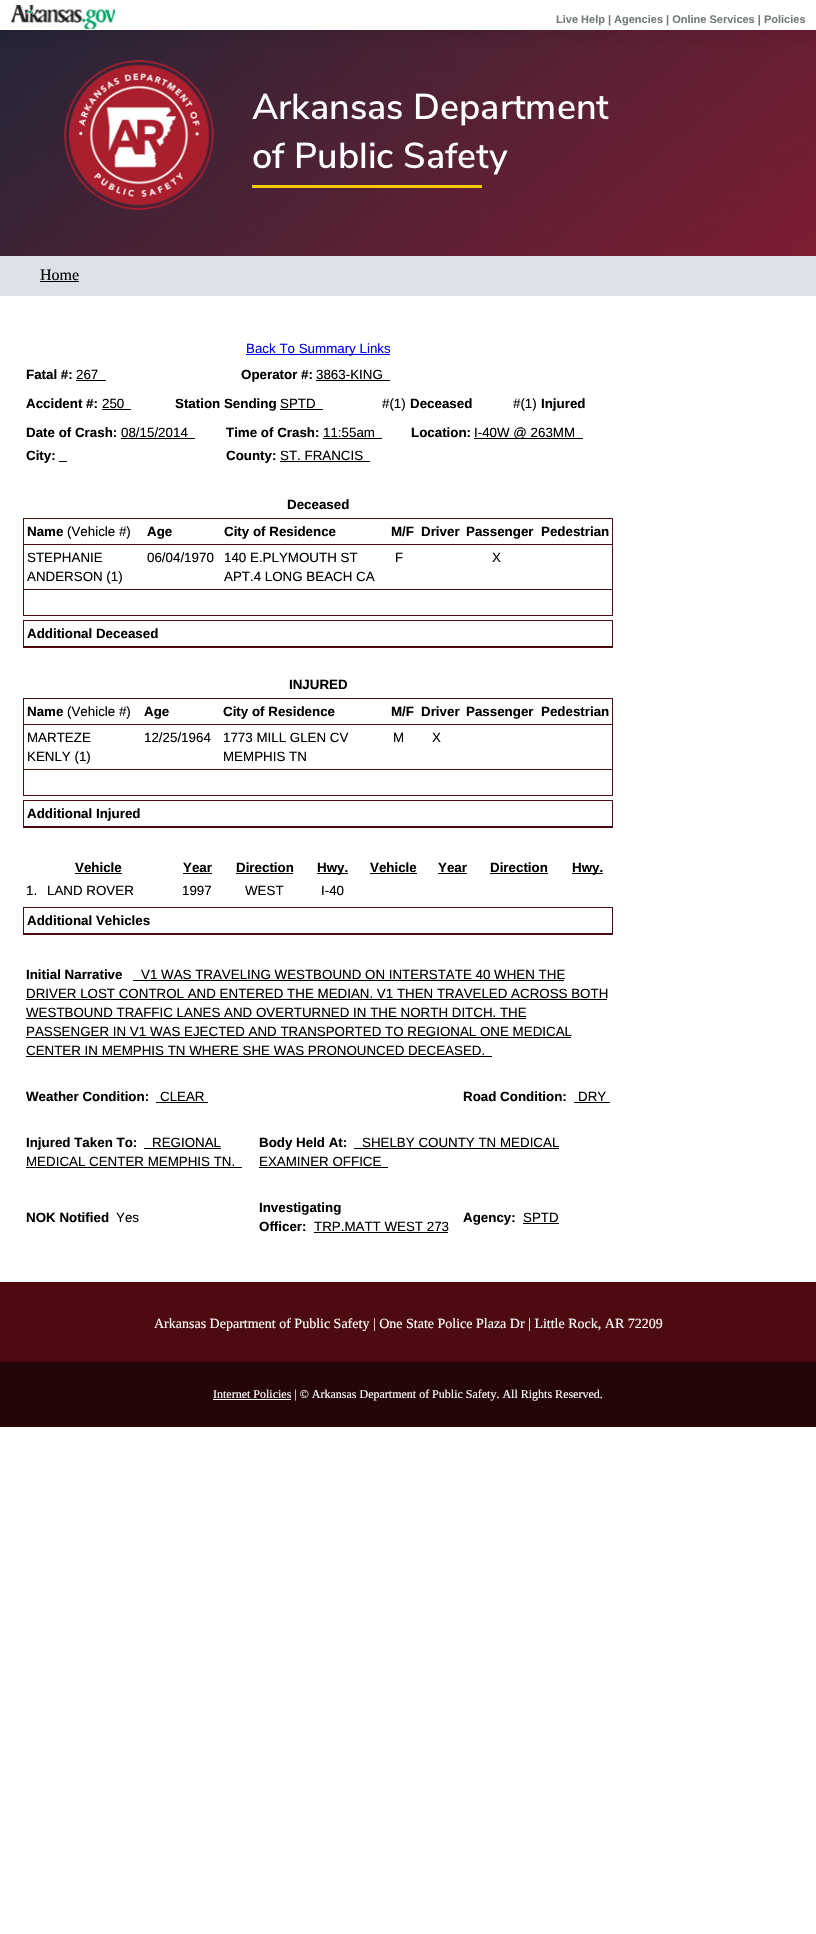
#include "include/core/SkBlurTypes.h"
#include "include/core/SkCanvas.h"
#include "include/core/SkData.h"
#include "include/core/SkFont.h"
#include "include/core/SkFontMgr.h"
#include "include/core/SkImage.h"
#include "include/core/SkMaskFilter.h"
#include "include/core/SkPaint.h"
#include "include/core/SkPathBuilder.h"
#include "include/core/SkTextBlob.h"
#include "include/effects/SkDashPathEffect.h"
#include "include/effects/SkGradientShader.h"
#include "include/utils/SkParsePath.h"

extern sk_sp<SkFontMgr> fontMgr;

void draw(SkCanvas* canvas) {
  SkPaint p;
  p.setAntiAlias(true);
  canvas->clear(SK_ColorWHITE);
  canvas->drawImageRect(SkImages::DeferredFromEncodedData(SkData::MakeFromFileName("images/1.png")), SkRect::MakeLTRB(11, 5, 115, 29), SkSamplingOptions());
  canvas->drawImageRect(SkImages::DeferredFromEncodedData(SkData::MakeFromFileName("images/2.png")), SkRect::MakeLTRB(0, 30, 816, 256), SkSamplingOptions());
  p.setColor(SkColorSetRGB(222, 225, 231));
  canvas->drawRect(SkRect::MakeLTRB(0, 256, 816, 296), p);
  p.setColor(SK_ColorBLACK);
  canvas->drawRect(SkRect::MakeLTRB(40, 281, 79, 282), p);
  p.setColor(SkColorSetRGB(0, 0, 238));
  canvas->drawRect(SkRect::MakeLTRB(246, 354, 390, 355), p);
  p.setColor(SK_ColorBLACK);
  canvas->drawRect(SkRect::MakeLTRB(76, 380, 106, 381), p);
  canvas->drawRect(SkRect::MakeLTRB(316, 380, 390, 381), p);
  canvas->drawRect(SkRect::MakeLTRB(102, 409, 131, 410), p);
  canvas->drawRect(SkRect::MakeLTRB(280, 409, 323, 410), p);
  canvas->drawRect(SkRect::MakeLTRB(121, 438, 195, 439), p);
  canvas->drawRect(SkRect::MakeLTRB(323, 438, 382, 439), p);
  canvas->drawRect(SkRect::MakeLTRB(474, 438, 583, 439), p);
  canvas->drawRect(SkRect::MakeLTRB(59, 461, 67, 462), p);
  canvas->drawRect(SkRect::MakeLTRB(280, 461, 370, 462), p);
  p.setColor(SkColorSetRGB(78, 11, 15));
  canvas->drawRect(SkRect::MakeLTRB(23, 518, 613, 616), p);
  p.setColor(SK_ColorWHITE);
  canvas->drawRect(SkRect::MakeLTRB(24, 519, 612, 544), p);
  canvas->drawRect(SkRect::MakeLTRB(24, 545, 612, 589), p);
  canvas->drawRect(SkRect::MakeLTRB(24, 590, 612, 615), p);
  p.setColor(SkColorSetRGB(78, 11, 15));
  canvas->drawRect(SkRect::MakeLTRB(23, 620, 613, 648), p);
  p.setColor(SK_ColorWHITE);
  canvas->drawRect(SkRect::MakeLTRB(24, 621, 612, 646), p);
  p.setColor(SkColorSetRGB(78, 11, 15));
  canvas->drawRect(SkRect::MakeLTRB(23, 698, 613, 796), p);
  p.setColor(SK_ColorWHITE);
  canvas->drawRect(SkRect::MakeLTRB(24, 699, 612, 724), p);
  canvas->drawRect(SkRect::MakeLTRB(24, 725, 612, 769), p);
  canvas->drawRect(SkRect::MakeLTRB(24, 770, 612, 795), p);
  p.setColor(SkColorSetRGB(78, 11, 15));
  canvas->drawRect(SkRect::MakeLTRB(23, 800, 613, 828), p);
  p.setColor(SK_ColorWHITE);
  canvas->drawRect(SkRect::MakeLTRB(24, 801, 612, 826), p);
  p.setColor(SK_ColorBLACK);
  canvas->drawRect(SkRect::MakeLTRB(75, 873, 122, 874), p);
  canvas->drawRect(SkRect::MakeLTRB(183, 873, 212, 874), p);
  canvas->drawRect(SkRect::MakeLTRB(236, 873, 293, 874), p);
  canvas->drawRect(SkRect::MakeLTRB(317, 873, 348, 874), p);
  canvas->drawRect(SkRect::MakeLTRB(370, 873, 417, 874), p);
  canvas->drawRect(SkRect::MakeLTRB(438, 873, 467, 874), p);
  canvas->drawRect(SkRect::MakeLTRB(490, 873, 548, 874), p);
  canvas->drawRect(SkRect::MakeLTRB(572, 873, 603, 874), p);
  p.setColor(SkColorSetRGB(78, 11, 15));
  canvas->drawRect(SkRect::MakeLTRB(23, 907, 613, 935), p);
  p.setColor(SK_ColorWHITE);
  canvas->drawRect(SkRect::MakeLTRB(24, 908, 612, 933), p);
  p.setColor(SK_ColorBLACK);
  canvas->drawRect(SkRect::MakeLTRB(133, 980, 564, 981), p);
  canvas->drawRect(SkRect::MakeLTRB(26, 999, 607, 1000), p);
  canvas->drawRect(SkRect::MakeLTRB(26, 1018, 526, 1019), p);
  canvas->drawRect(SkRect::MakeLTRB(26, 1037, 571, 1038), p);
  canvas->drawRect(SkRect::MakeLTRB(26, 1056, 492, 1057), p);
  canvas->drawRect(SkRect::MakeLTRB(156, 1102, 208, 1103), p);
  canvas->drawRect(SkRect::MakeLTRB(574, 1102, 610, 1103), p);
  canvas->drawRect(SkRect::MakeLTRB(144, 1148, 221, 1149), p);
  canvas->drawRect(SkRect::MakeLTRB(26, 1167, 242, 1168), p);
  canvas->drawRect(SkRect::MakeLTRB(354, 1148, 559, 1149), p);
  canvas->drawRect(SkRect::MakeLTRB(259, 1167, 388, 1168), p);
  canvas->drawRect(SkRect::MakeLTRB(314, 1232, 448, 1233), p);
  canvas->drawRect(SkRect::MakeLTRB(523, 1223, 559, 1224), p);
  p.setColor(SkColorSetRGB(78, 11, 15));
  canvas->drawRect(SkRect::MakeLTRB(0, 1282, 816, 1362), p);
  p.setColor(SkColorSetRGB(37, 6, 8));
  canvas->drawRect(SkRect::MakeLTRB(0, 1362, 816, 1427), p);
  p.setColor(SK_ColorWHITE);
  canvas->drawRect(SkRect::MakeLTRB(213, 1399, 291, 1400), p);
  SkFont font1(fontMgr->matchFamilyStyle("Liberation Sans", SkFontStyle::Bold()), 11);
  font1.setSubpixel(true);
  p.setColor(SkColorSetRGB(116, 122, 124));
  canvas->drawString("Live Help | Agencies | Online Services | Policies", 556, 23, font1, p);
  SkFont font2(fontMgr->matchFamilyStyle("Liberation Serif", SkFontStyle::Normal()), 16);
  font2.setSubpixel(true);
  p.setColor(SK_ColorBLACK);
  canvas->drawString("Home", 40, 280, font2, p);
  SkFont font3(fontMgr->matchFamilyStyle("Liberation Sans", SkFontStyle::Normal()), 13.35f);
  font3.setSubpixel(true);
  p.setColor(SkColorSetRGB(0, 0, 238));
  canvas->drawString("Back To Summary Links", 246, 353, font3, p);
  SkFont font4(fontMgr->matchFamilyStyle("Liberation Sans", SkFontStyle::Bold()), 13.35f);
  font4.setSubpixel(true);
  p.setColor(SK_ColorBLACK);
  canvas->drawString("Fatal #:", 26, 379, font4, p);
  canvas->drawString("267", 76, 379, font3, p);
  canvas->drawString("Operator #:", 241, 379, font4, p);
  canvas->drawString("3863-KING", 316, 379, font3, p);
  canvas->drawString("Accident #:", 26, 408, font4, p);
  canvas->drawString("250", 102, 408, font3, p);
  canvas->drawString("Station Sending", 175, 408, font4, p);
  canvas->drawString("SPTD", 280, 408, font3, p);
  canvas->drawString("#(1)", 382, 408, font3, p);
  canvas->drawString("Deceased", 410, 408, font4, p);
  canvas->drawString("#(1)", 513, 408, font3, p);
  canvas->drawString("Injured", 541, 408, font4, p);
  canvas->drawString("Date of Crash:", 26, 437, font4, p);
  canvas->drawString("08/15/2014", 121, 437, font3, p);
  canvas->drawString("Time of Crash:", 226, 437, font4, p);
  canvas->drawString("11:55am", 323, 437, font3, p);
  canvas->drawString("Location:", 411, 437, font4, p);
  canvas->drawString("I-40W @ 263MM", 474, 437, font3, p);
  canvas->drawString("City:", 26, 460, font4, p);
  canvas->drawString("County:", 226, 460, font4, p);
  canvas->drawString("ST. FRANCIS", 280, 460, font3, p);
  canvas->drawString("Deceased", 287, 509, font4, p);
  canvas->drawString("Name", 27, 536, font4, p);
  canvas->drawString("(Vehicle #)", 67, 536, font3, p);
  canvas->drawString("Age", 147, 536, font4, p);
  canvas->drawString("City of Residence", 224, 536, font4, p);
  canvas->drawString("M/F", 391, 536, font4, p);
  canvas->drawString("Driver", 421, 536, font4, p);
  canvas->drawString("Passenger", 466, 536, font4, p);
  canvas->drawString("Pedestrian", 541, 536, font4, p);
  canvas->drawString("STEPHANIE", 27, 562, font3, p);
  canvas->drawString("ANDERSON (1)", 27, 581, font3, p);
  canvas->drawString("06/04/1970", 147, 562, font3, p);
  canvas->drawString("140 E.PLYMOUTH ST", 224, 562, font3, p);
  canvas->drawString("APT.4 LONG BEACH CA", 224, 581, font3, p);
  canvas->drawString("F", 395, 562, font3, p);
  canvas->drawString("X", 492, 562, font3, p);
  canvas->drawString("Additional Deceased", 27, 638, font4, p);
  canvas->drawString("INJURED", 289, 689, font4, p);
  canvas->drawString("Name", 27, 716, font4, p);
  canvas->drawString("(Vehicle #)", 67, 716, font3, p);
  canvas->drawString("Age", 144, 716, font4, p);
  canvas->drawString("City of Residence", 223, 716, font4, p);
  canvas->drawString("M/F", 391, 716, font4, p);
  canvas->drawString("Driver", 421, 716, font4, p);
  canvas->drawString("Passenger", 466, 716, font4, p);
  canvas->drawString("Pedestrian", 541, 716, font4, p);
  canvas->drawString("MARTEZE", 27, 742, font3, p);
  canvas->drawString("KENLY (1)", 27, 761, font3, p);
  canvas->drawString("12/25/1964", 144, 742, font3, p);
  canvas->drawString("1773 MILL GLEN CV", 223, 742, font3, p);
  canvas->drawString("MEMPHIS TN", 223, 761, font3, p);
  canvas->drawString("M", 393, 742, font3, p);
  canvas->drawString("X", 432, 742, font3, p);
  canvas->drawString("Additional Injured", 27, 818, font4, p);
  canvas->drawString("Vehicle", 75, 872, font4, p);
  canvas->drawString("Year", 183, 872, font4, p);
  canvas->drawString("Direction", 236, 872, font4, p);
  canvas->drawString("Hwy.", 317, 872, font4, p);
  canvas->drawString("Vehicle", 370, 872, font4, p);
  canvas->drawString("Year", 438, 872, font4, p);
  canvas->drawString("Direction", 490, 872, font4, p);
  canvas->drawString("Hwy.", 572, 872, font4, p);
  canvas->drawString("1.", 26, 895, font3, p);
  canvas->drawString("LAND ROVER", 47, 895, font3, p);
  canvas->drawString("1997", 182, 895, font3, p);
  canvas->drawString("WEST", 245, 895, font3, p);
  canvas->drawString("I-40", 321, 895, font3, p);
  canvas->drawString("Additional Vehicles", 27, 925, font4, p);
  canvas->drawString("Initial Narrative", 26, 979, font4, p);
  canvas->drawString("V1 WAS TRAVELING WESTBOUND ON INTERSTATE 40 WHEN THE", 141, 979, font3, p);
  canvas->drawString("DRIVER LOST CONTROL AND ENTERED THE MEDIAN. V1 THEN TRAVELED ACROSS BOTH", 26, 998, font3, p);
  canvas->drawString("WESTBOUND TRAFFIC LANES AND OVERTURNED IN THE NORTH DITCH. THE", 26, 1017, font3, p);
  canvas->drawString("PASSENGER IN V1 WAS EJECTED AND TRANSPORTED TO REGIONAL ONE MEDICAL", 26, 1036, font3, p);
  canvas->drawString("CENTER IN MEMPHIS TN WHERE SHE WAS PRONOUNCED DECEASED.", 26, 1055, font3, p);
  canvas->drawString("Weather Condition:", 26, 1101, font4, p);
  canvas->drawString("CLEAR", 160, 1101, font3, p);
  canvas->drawString("Road Condition:", 463, 1101, font4, p);
  canvas->drawString("DRY", 578, 1101, font3, p);
  canvas->drawString("Injured Taken To:", 26, 1147, font4, p);
  canvas->drawString("REGIONAL", 152, 1147, font3, p);
  canvas->drawString("MEDICAL CENTER MEMPHIS TN.", 26, 1166, font3, p);
  canvas->drawString("Body Held At:", 259, 1147, font4, p);
  canvas->drawString("SHELBY COUNTY TN MEDICAL", 362, 1147, font3, p);
  canvas->drawString("EXAMINER OFFICE", 259, 1166, font3, p);
  canvas->drawString("NOK Notified", 26, 1222, font4, p);
  canvas->drawString("Yes", 116, 1222, font3, p);
  canvas->drawString("Investigating", 259, 1212, font4, p);
  canvas->drawString("Officer:", 259, 1231, font4, p);
  canvas->drawString("TRP.MATT WEST 273", 314, 1231, font3, p);
  canvas->drawString("Agency:", 463, 1222, font4, p);
  canvas->drawString("SPTD", 523, 1222, font3, p);
  SkFont font5(fontMgr->matchFamilyStyle("Liberation Serif", SkFontStyle::Normal()), 14);
  font5.setSubpixel(true);
  p.setColor(SK_ColorWHITE);
  canvas->drawString("Arkansas Department of Public Safety | One State Police Plaza Dr | Little Rock, AR 72209", 154, 1328, font5, p);
  SkFont font6(fontMgr->matchFamilyStyle("Liberation Serif", SkFontStyle::Normal()), 12);
  font6.setSubpixel(true);
  canvas->drawString("Internet Policies | © Arkansas Department of Public Safety. All Rights Reserved.", 213, 1398, font6, p);
}
